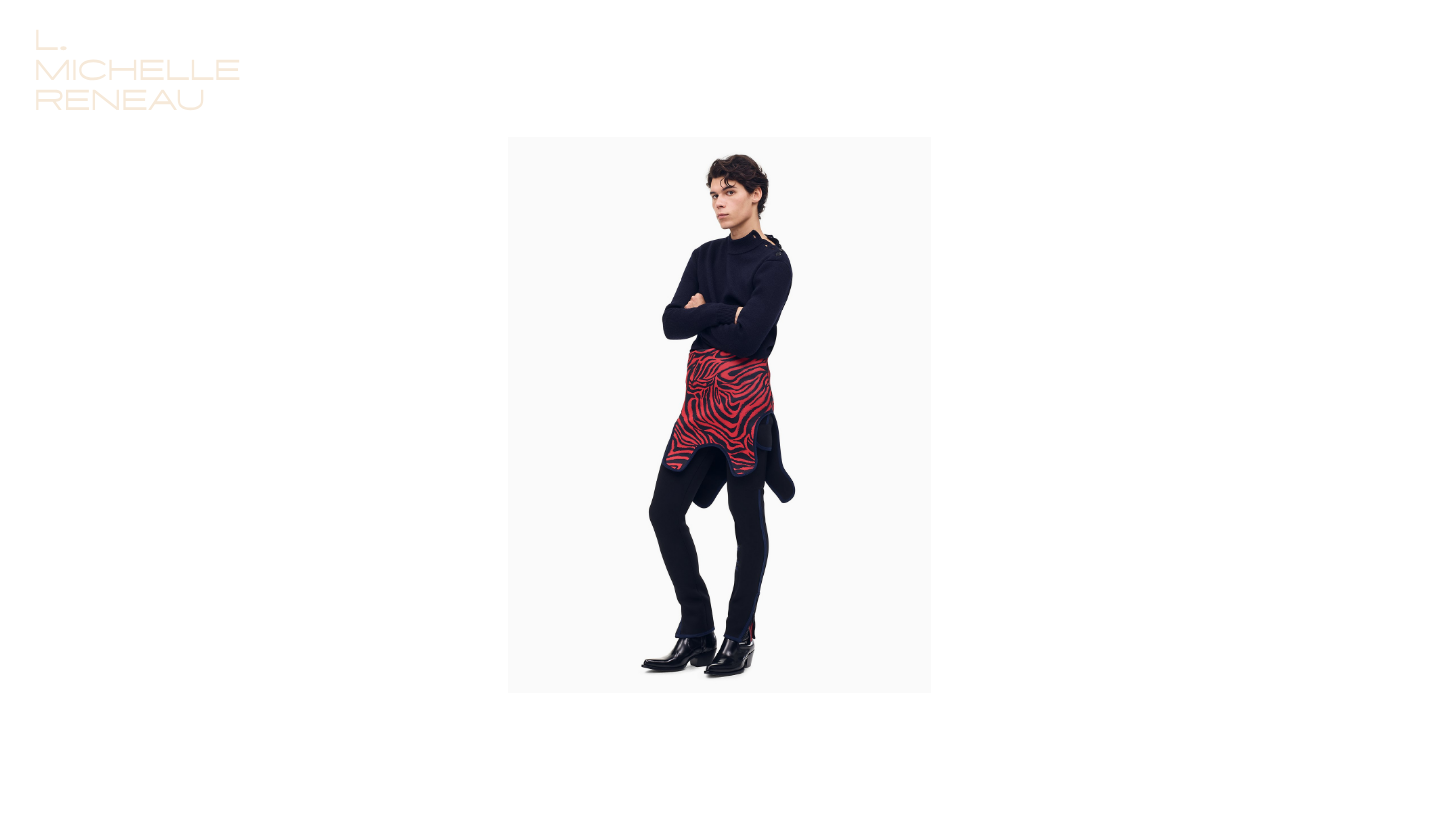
#include "include/core/SkBlurTypes.h"
#include "include/core/SkCanvas.h"
#include "include/core/SkData.h"
#include "include/core/SkFont.h"
#include "include/core/SkFontMgr.h"
#include "include/core/SkImage.h"
#include "include/core/SkMaskFilter.h"
#include "include/core/SkPaint.h"
#include "include/core/SkPathBuilder.h"
#include "include/core/SkTextBlob.h"
#include "include/effects/SkDashPathEffect.h"
#include "include/effects/SkGradientShader.h"
#include "include/utils/SkParsePath.h"

extern sk_sp<SkFontMgr> fontMgr;

void draw(SkCanvas* canvas) {
  SkPaint p;
  p.setAntiAlias(true);
  canvas->clear(SK_ColorWHITE);
  canvas->drawImageRect(SkImages::DeferredFromEncodedData(SkData::MakeFromFileName("images/1.png")), SkRect::MakeLTRB(36, 29, 240, 111), SkSamplingOptions());
  canvas->drawImageRect(SkImages::DeferredFromEncodedData(SkData::MakeFromFileName("images/2.png")), SkRect::MakeLTRB(508, 137, 931, 693), SkSamplingOptions());
}
